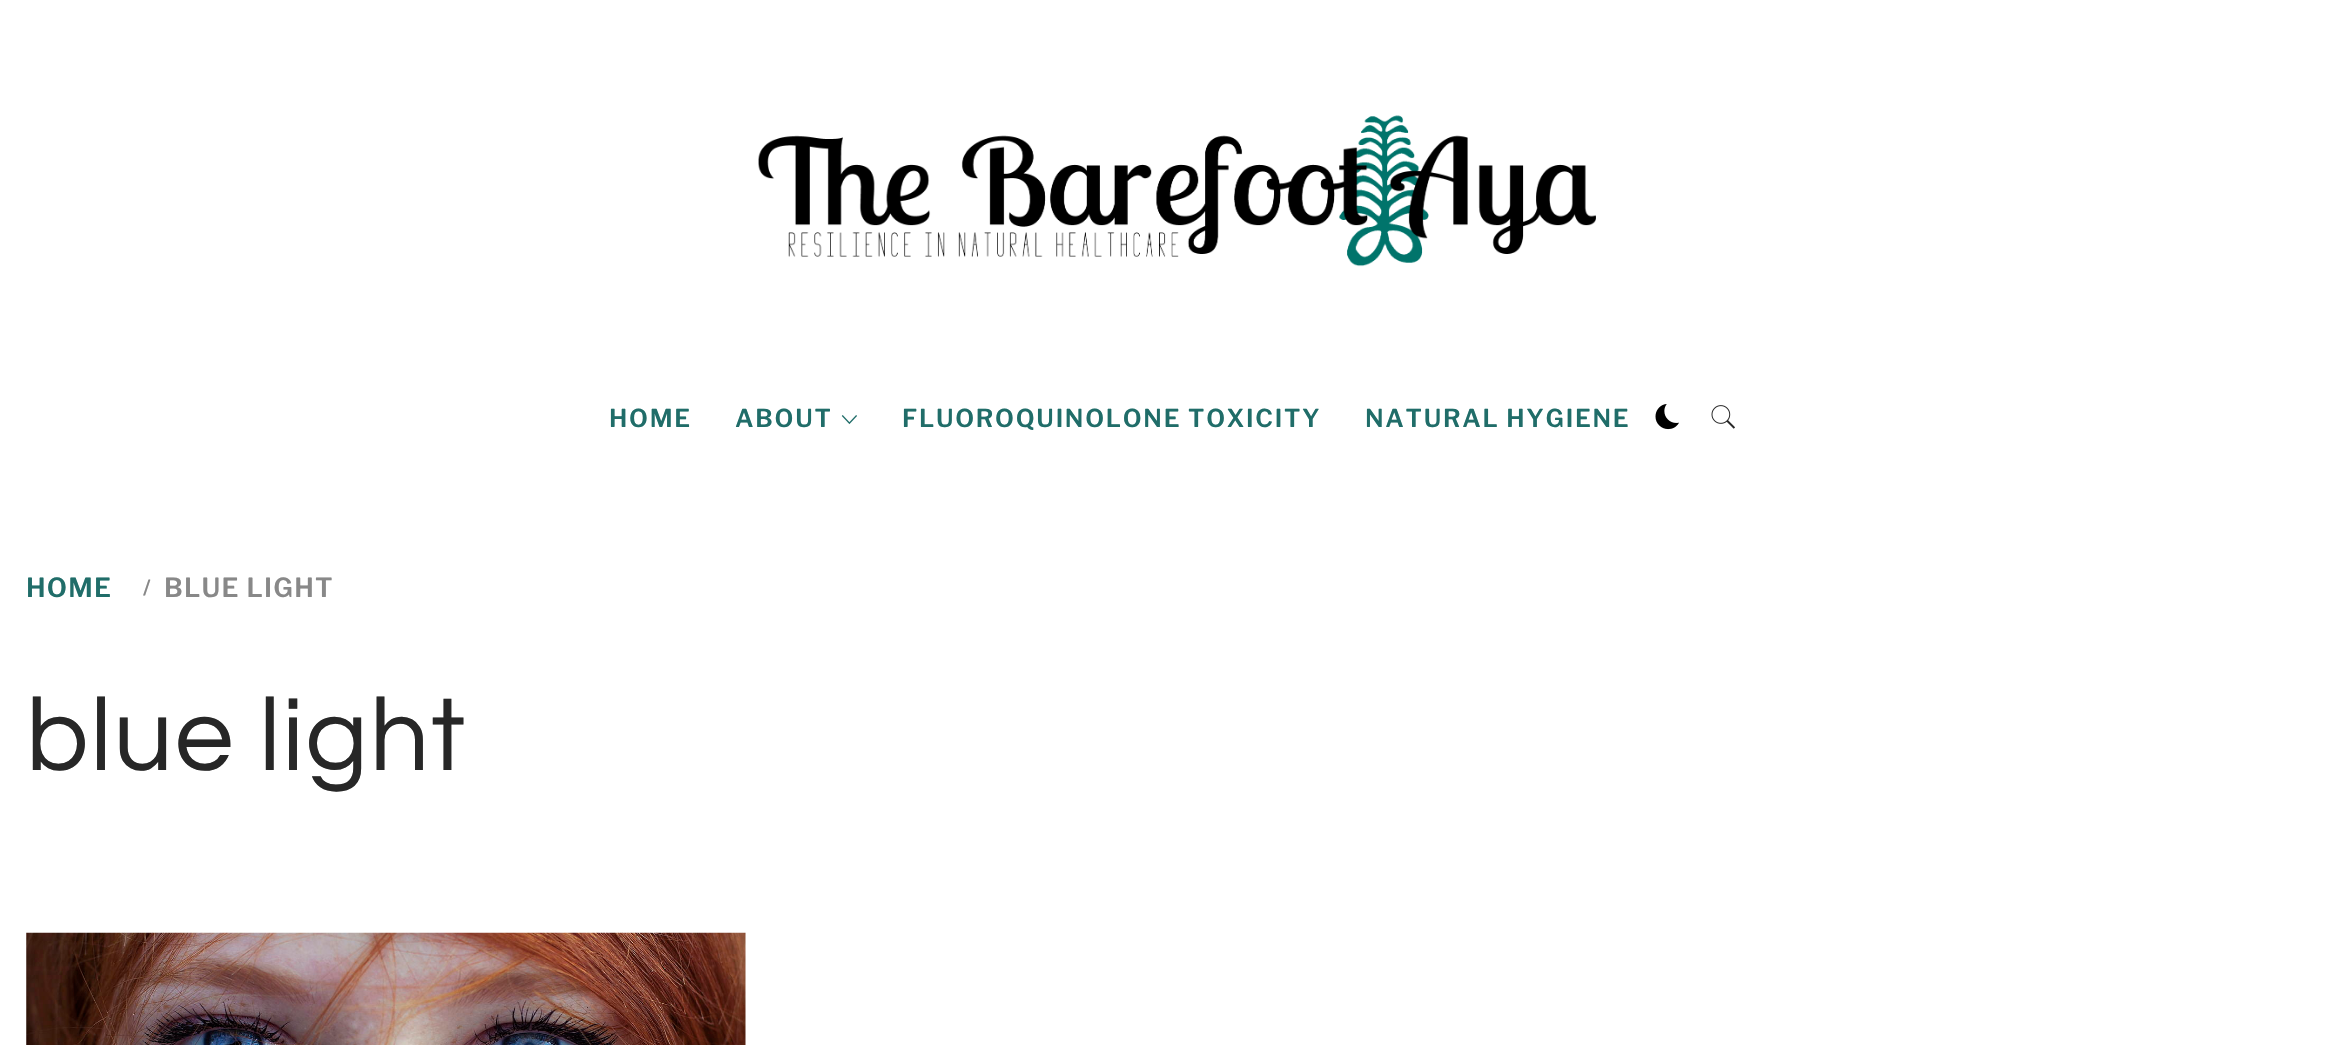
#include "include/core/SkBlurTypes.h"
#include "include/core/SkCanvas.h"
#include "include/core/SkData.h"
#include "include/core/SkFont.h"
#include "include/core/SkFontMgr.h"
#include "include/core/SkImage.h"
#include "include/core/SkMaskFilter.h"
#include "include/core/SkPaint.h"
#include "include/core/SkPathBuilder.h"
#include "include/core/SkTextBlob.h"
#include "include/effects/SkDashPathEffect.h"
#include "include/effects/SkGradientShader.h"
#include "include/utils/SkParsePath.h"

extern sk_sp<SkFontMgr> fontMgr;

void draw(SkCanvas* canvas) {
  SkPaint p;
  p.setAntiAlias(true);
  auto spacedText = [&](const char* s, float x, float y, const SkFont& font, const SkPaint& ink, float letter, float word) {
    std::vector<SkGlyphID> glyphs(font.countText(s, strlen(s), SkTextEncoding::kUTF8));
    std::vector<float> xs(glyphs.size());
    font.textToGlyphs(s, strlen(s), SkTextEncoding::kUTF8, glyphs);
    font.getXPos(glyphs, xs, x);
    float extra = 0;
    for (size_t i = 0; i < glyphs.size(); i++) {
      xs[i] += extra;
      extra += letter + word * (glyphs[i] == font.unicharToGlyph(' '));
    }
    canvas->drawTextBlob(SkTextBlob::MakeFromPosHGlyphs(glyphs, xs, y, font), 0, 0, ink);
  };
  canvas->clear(SK_ColorWHITE);
  canvas->drawImageRect(SkImages::DeferredFromEncodedData(SkData::MakeFromFileName("images/1.png")), SkRect::MakeLTRB(758, 115, 1596, 267), SkSamplingOptions());
  canvas->drawImageRect(SkImages::DeferredFromEncodedData(SkData::MakeFromFileName("images/2.png")), SkRect::MakeLTRB(841, 415, 857, 425), SkSamplingOptions());
  canvas->drawImageRect(SkImages::DeferredFromEncodedData(SkData::MakeFromFileName("images/3.png")), SkRect::MakeLTRB(1655, 404, 1679, 430), SkSamplingOptions());
  canvas->drawImageRect(SkImages::DeferredFromEncodedData(SkData::MakeFromFileName("images/4.png")), SkRect::MakeLTRB(1711, 405, 1735, 429), SkSamplingOptions());
  canvas->drawImageRect(SkImages::DeferredFromEncodedData(SkData::MakeFromFileName("images/5.png")), SkRect::MakeLTRB(26, 932, 746, 1045), SkSamplingOptions());
  SkFont font1(fontMgr->matchFamilyStyle("Libre Franklin", SkFontStyle(600, SkFontStyle::kNormal_Width, SkFontStyle::kUpright_Slant)), 24.5f);
  font1.setSubpixel(true);
  p.setColor(SkColorSetRGB(32, 109, 105));
  spacedText("HOME", 609, 427, font1, p, 1.75f, 0);
  spacedText("ABOUT", 735, 427, font1, p, 1.75f, 0);
  spacedText("FLUOROQUINOLONE TOXICITY", 902, 427, font1, p, 1.75f, 0);
  spacedText("NATURAL HYGIENE", 1365, 427, font1, p, 1.75f, 0);
  SkFont font2(fontMgr->matchFamilyStyle("Libre Franklin", SkFontStyle(600, SkFontStyle::kNormal_Width, SkFontStyle::kUpright_Slant)), 26.25f);
  font2.setSubpixel(true);
  spacedText("HOME", 26, 597, font2, p, 1.25f, 0);
  SkFont font3(fontMgr->matchFamilyStyle("Libre Franklin", SkFontStyle(600, SkFontStyle::kNormal_Width, SkFontStyle::kUpright_Slant)), 21);
  font3.setSubpixel(true);
  p.setColor(SkColorSetRGB(136, 136, 136));
  spacedText("/", 143, 595, font3, p, 1.25f, 0);
  spacedText("BLUE LIGHT", 164, 597, font2, p, 1.25f, 0);
  SkFont font4(fontMgr->matchFamilyStyle("Questrial", SkFontStyle::Normal()), 105);
  font4.setSubpixel(true);
  p.setColor(SkColorSetRGB(39, 39, 39));
  spacedText("blue light", 26, 770, font4, p, 1.75f, 0);
}
